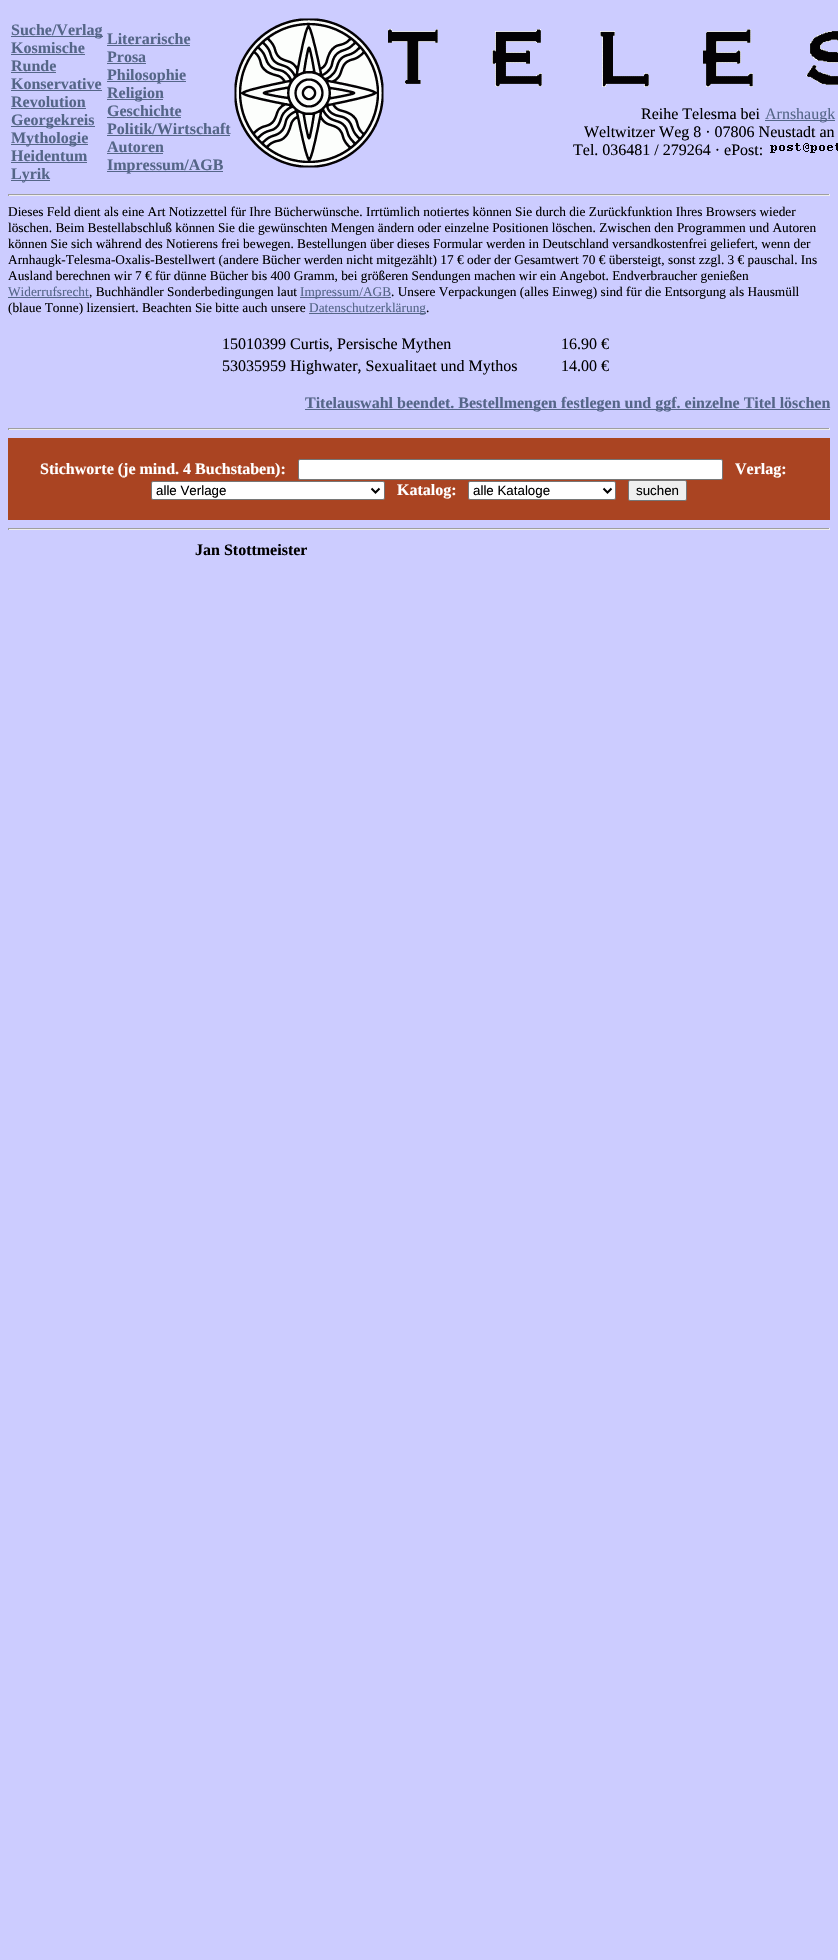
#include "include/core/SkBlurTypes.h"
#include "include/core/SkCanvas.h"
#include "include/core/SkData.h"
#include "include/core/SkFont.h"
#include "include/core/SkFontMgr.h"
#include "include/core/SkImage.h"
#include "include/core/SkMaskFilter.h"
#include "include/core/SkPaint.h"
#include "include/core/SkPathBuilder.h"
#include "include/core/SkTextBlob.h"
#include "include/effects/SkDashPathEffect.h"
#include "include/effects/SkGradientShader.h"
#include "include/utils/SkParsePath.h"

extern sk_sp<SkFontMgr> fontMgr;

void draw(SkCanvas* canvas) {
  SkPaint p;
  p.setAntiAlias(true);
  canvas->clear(SkColorSetRGB(204, 204, 255));
  p.setColor(SkColorSetRGB(85, 102, 136));
  canvas->drawRect(SkRect::MakeLTRB(11, 36, 103, 37), p);
  canvas->drawRect(SkRect::MakeLTRB(11, 54, 85, 55), p);
  canvas->drawRect(SkRect::MakeLTRB(11, 72, 56, 73), p);
  canvas->drawRect(SkRect::MakeLTRB(11, 90, 102, 91), p);
  canvas->drawRect(SkRect::MakeLTRB(11, 108, 86, 109), p);
  canvas->drawRect(SkRect::MakeLTRB(11, 126, 95, 127), p);
  canvas->drawRect(SkRect::MakeLTRB(11, 144, 88, 145), p);
  canvas->drawRect(SkRect::MakeLTRB(11, 162, 87, 163), p);
  canvas->drawRect(SkRect::MakeLTRB(11, 180, 50, 181), p);
  canvas->drawRect(SkRect::MakeLTRB(107, 45, 190, 46), p);
  canvas->drawRect(SkRect::MakeLTRB(107, 63, 146, 64), p);
  canvas->drawRect(SkRect::MakeLTRB(107, 81, 186, 82), p);
  canvas->drawRect(SkRect::MakeLTRB(107, 99, 163, 100), p);
  canvas->drawRect(SkRect::MakeLTRB(107, 117, 181, 118), p);
  canvas->drawRect(SkRect::MakeLTRB(107, 135, 230, 136), p);
  canvas->drawRect(SkRect::MakeLTRB(107, 153, 163, 154), p);
  canvas->drawRect(SkRect::MakeLTRB(107, 171, 223, 172), p);
  canvas->drawImageRect(SkImages::DeferredFromEncodedData(SkData::MakeFromFileName("images/1.png")), SkRect::MakeLTRB(234, 18, 384, 168), SkSamplingOptions());
  canvas->drawImageRect(SkImages::DeferredFromEncodedData(SkData::MakeFromFileName("images/2.png")), SkRect::MakeLTRB(388, 29, 838, 87), SkSamplingOptions());
  canvas->drawRect(SkRect::MakeLTRB(765, 120, 835, 121), p);
  canvas->drawImageRect(SkImages::DeferredFromEncodedData(SkData::MakeFromFileName("images/3.png")), SkRect::MakeLTRB(770, 143, 838, 153), SkSamplingOptions());
  p.setColor(SkColorSetRGB(159, 159, 159));
  canvas->drawRect(SkRect::MakeLTRB(8, 194, 830, 195), p);
  p.setColor(SkColorSetRGB(238, 238, 238));
  canvas->drawRect(SkRect::MakeLTRB(829, 194, 830, 196), p);
  canvas->drawRect(SkRect::MakeLTRB(8, 195, 830, 196), p);
  p.setColor(SkColorSetRGB(159, 159, 159));
  canvas->drawRect(SkRect::MakeLTRB(8, 194, 9, 196), p);
  p.setColor(SkColorSetRGB(85, 102, 136));
  canvas->drawRect(SkRect::MakeLTRB(8, 297, 89, 298), p);
  canvas->drawRect(SkRect::MakeLTRB(300, 297, 391, 298), p);
  canvas->drawRect(SkRect::MakeLTRB(309, 313, 426, 314), p);
  canvas->drawRect(SkRect::MakeLTRB(305, 409, 830, 410), p);
  p.setColor(SkColorSetRGB(159, 159, 159));
  canvas->drawRect(SkRect::MakeLTRB(8, 428, 830, 429), p);
  p.setColor(SkColorSetRGB(238, 238, 238));
  canvas->drawRect(SkRect::MakeLTRB(829, 428, 830, 430), p);
  canvas->drawRect(SkRect::MakeLTRB(8, 429, 830, 430), p);
  p.setColor(SkColorSetRGB(159, 159, 159));
  canvas->drawRect(SkRect::MakeLTRB(8, 428, 9, 430), p);
  p.setColor(SkColorSetRGB(170, 68, 34));
  canvas->drawRect(SkRect::MakeLTRB(8, 438, 830, 520), p);
  p.setColor(SK_ColorWHITE);
  canvas->drawRoundRect(SkRect::MakeLTRB(298.5f, 459.5f, 722.5f, 479.5f), 1.5f, 1.5f, p);
  p.setStyle(SkPaint::kStroke_Style);
  p.setStrokeWidth(1);
  p.setColor(SkColorSetRGB(118, 118, 118));
  canvas->drawRoundRect(SkRect::MakeLTRB(298.5f, 459.5f, 722.5f, 479.5f), 1.5f, 1.5f, p);
  p.setStyle(SkPaint::kFill_Style);
  p.setColor(SK_ColorWHITE);
  canvas->drawRoundRect(SkRect::MakeLTRB(151.5f, 481.5f, 384.5f, 499.5f), 1.5f, 1.5f, p);
  p.setStyle(SkPaint::kStroke_Style);
  p.setColor(SkColorSetRGB(118, 118, 118));
  canvas->drawRoundRect(SkRect::MakeLTRB(151.5f, 481.5f, 384.5f, 499.5f), 1.5f, 1.5f, p);
  p.setStrokeWidth(2);
  p.setColor(SK_ColorBLACK);
  canvas->drawPath(SkPathBuilder().moveTo(371.5f, 488.5f).lineTo(375.5f, 492.5f).lineTo(379.5f, 488.5f).detach(), p);
  p.setStyle(SkPaint::kFill_Style);
  p.setColor(SK_ColorWHITE);
  canvas->drawRoundRect(SkRect::MakeLTRB(468.5f, 481.5f, 615.5f, 499.5f), 1.5f, 1.5f, p);
  p.setStyle(SkPaint::kStroke_Style);
  p.setStrokeWidth(1);
  p.setColor(SkColorSetRGB(118, 118, 118));
  canvas->drawRoundRect(SkRect::MakeLTRB(468.5f, 481.5f, 615.5f, 499.5f), 1.5f, 1.5f, p);
  p.setStrokeWidth(2);
  p.setColor(SK_ColorBLACK);
  canvas->drawPath(SkPathBuilder().moveTo(603.5f, 488.5f).lineTo(607.5f, 492.5f).lineTo(611.5f, 488.5f).detach(), p);
  p.setStyle(SkPaint::kFill_Style);
  p.setColor(SkColorSetRGB(239, 239, 239));
  canvas->drawRoundRect(SkRect::MakeLTRB(628.5f, 480.5f, 686.5f, 500.5f), 1.5f, 1.5f, p);
  p.setStyle(SkPaint::kStroke_Style);
  p.setStrokeWidth(1);
  p.setColor(SkColorSetRGB(118, 118, 118));
  canvas->drawRoundRect(SkRect::MakeLTRB(628.5f, 480.5f, 686.5f, 500.5f), 1.5f, 1.5f, p);
  p.setStyle(SkPaint::kFill_Style);
  p.setColor(SkColorSetRGB(159, 159, 159));
  canvas->drawRect(SkRect::MakeLTRB(8, 528, 830, 529), p);
  p.setColor(SkColorSetRGB(238, 238, 238));
  canvas->drawRect(SkRect::MakeLTRB(829, 528, 830, 530), p);
  canvas->drawRect(SkRect::MakeLTRB(8, 529, 830, 530), p);
  p.setColor(SkColorSetRGB(159, 159, 159));
  canvas->drawRect(SkRect::MakeLTRB(8, 528, 9, 530), p);
  SkFont font1(fontMgr->matchFamilyStyle("Liberation Serif", SkFontStyle::Bold()), 16);
  font1.setSubpixel(true);
  p.setColor(SkColorSetRGB(85, 102, 136));
  canvas->drawString("Suche/Verlag", 11, 35, font1, p);
  canvas->drawString("Kosmische", 11, 53, font1, p);
  canvas->drawString("Runde", 11, 71, font1, p);
  canvas->drawString("Konservative", 11, 89, font1, p);
  canvas->drawString("Revolution", 11, 107, font1, p);
  canvas->drawString("Georgekreis", 11, 125, font1, p);
  canvas->drawString("Mythologie", 11, 143, font1, p);
  canvas->drawString("Heidentum", 11, 161, font1, p);
  canvas->drawString("Lyrik", 11, 179, font1, p);
  canvas->drawString("Literarische", 107, 44, font1, p);
  canvas->drawString("Prosa", 107, 62, font1, p);
  canvas->drawString("Philosophie", 107, 80, font1, p);
  canvas->drawString("Religion", 107, 98, font1, p);
  canvas->drawString("Geschichte", 107, 116, font1, p);
  canvas->drawString("Politik/Wirtschaft", 107, 134, font1, p);
  canvas->drawString("Autoren", 107, 152, font1, p);
  canvas->drawString("Impressum/AGB", 107, 170, font1, p);
  SkFont font2(fontMgr->matchFamilyStyle("Liberation Serif", SkFontStyle::Normal()), 16);
  font2.setSubpixel(true);
  p.setColor(SK_ColorBLACK);
  canvas->drawString("Reihe Telesma bei", 641, 119, font2, p);
  p.setColor(SkColorSetRGB(85, 102, 136));
  canvas->drawString("Arnshaugk", 765, 119, font2, p);
  p.setColor(SK_ColorBLACK);
  canvas->drawString("Weltwitzer Weg 8 · 07806 Neustadt an", 584, 137, font2, p);
  canvas->drawString("Tel. 036481 / 279264 · ePost:", 573, 155, font2, p);
  SkFont font3(fontMgr->matchFamilyStyle("Liberation Serif", SkFontStyle::Normal()), 13.33f);
  font3.setSubpixel(true);
  canvas->drawString("Dieses Feld dient als eine Art Notizzettel für Ihre Bücherwünsche. Irrtümlich notiertes können Sie durch die Zurückfunktion Ihres Browsers wieder", 8, 216, font3, p);
  canvas->drawString("löschen. Beim Bestellabschluß können Sie die gewünschten Mengen ändern oder einzelne Positionen löschen. Zwischen den Programmen und Autoren", 8, 232, font3, p);
  canvas->drawString("können Sie sich während des Notierens frei bewegen. Bestellungen über dieses Formular werden in Deutschland versandkostenfrei geliefert, wenn der", 8, 248, font3, p);
  canvas->drawString("Arnhaugk-Telesma-Oxalis-Bestellwert (andere Bücher werden nicht mitgezählt) 17 € oder der Gesamtwert 70 € übersteigt, sonst zzgl. 3 € pauschal. Ins", 8, 264, font3, p);
  canvas->drawString("Ausland berechnen wir 7 € für dünne Bücher bis 400 Gramm, bei größeren Sendungen machen wir ein Angebot. Endverbraucher genießen", 8, 280, font3, p);
  p.setColor(SkColorSetRGB(85, 102, 136));
  canvas->drawString("Widerrufsrecht", 8, 296, font3, p);
  p.setColor(SK_ColorBLACK);
  canvas->drawString(", Buchhändler Sonderbedingungen laut", 89, 296, font3, p);
  p.setColor(SkColorSetRGB(85, 102, 136));
  canvas->drawString("Impressum/AGB", 300, 296, font3, p);
  p.setColor(SK_ColorBLACK);
  canvas->drawString(". Unsere Verpackungen (alles Einweg) sind für die Entsorgung als Hausmüll", 391, 296, font3, p);
  canvas->drawString("(blaue Tonne) lizensiert. Beachten Sie bitte auch unsere", 8, 312, font3, p);
  p.setColor(SkColorSetRGB(85, 102, 136));
  canvas->drawString("Datenschutzerklärung", 309, 312, font3, p);
  p.setColor(SK_ColorBLACK);
  canvas->drawString(".", 426, 312, font3, p);
  canvas->drawString("15010399 Curtis, Persische Mythen", 222, 349, font2, p);
  canvas->drawString("16.90 €", 561, 349, font2, p);
  canvas->drawString("53035959 Highwater, Sexualitaet und Mythos", 222, 371, font2, p);
  canvas->drawString("14.00 €", 561, 371, font2, p);
  p.setColor(SkColorSetRGB(85, 102, 136));
  canvas->drawString("Titelauswahl beendet. Bestellmengen festlegen und ggf. einzelne Titel löschen", 305, 408, font1, p);
  p.setColor(SK_ColorWHITE);
  canvas->drawString("Stichworte (je mind. 4 Buchstaben):", 40, 474, font1, p);
  canvas->drawString("Verlag:", 735, 474, font1, p);
  SkFont font4(fontMgr->matchFamilyStyle("Liberation Sans", SkFontStyle::Normal()), 13.33f);
  font4.setSubpixel(true);
  p.setColor(SK_ColorBLACK);
  canvas->drawString("alle Verlage", 156, 495, font4, p);
  p.setColor(SK_ColorWHITE);
  canvas->drawString("Katalog:", 397, 495, font1, p);
  p.setColor(SK_ColorBLACK);
  canvas->drawString("alle Kataloge", 473, 495, font4, p);
  canvas->drawString("suchen", 636, 495, font4, p);
  canvas->drawString("Jan Stottmeister", 195, 555, font1, p);
}
